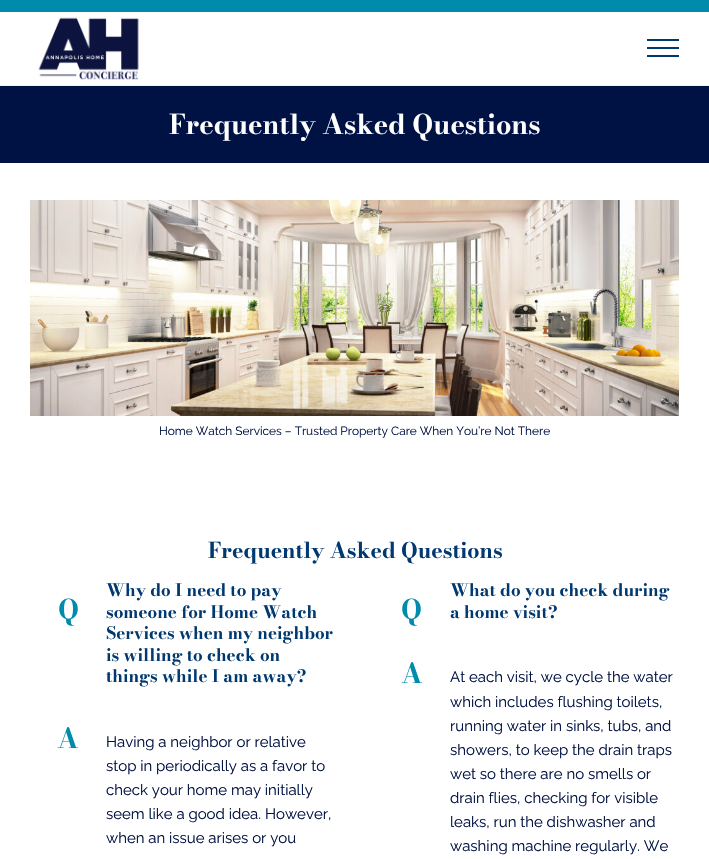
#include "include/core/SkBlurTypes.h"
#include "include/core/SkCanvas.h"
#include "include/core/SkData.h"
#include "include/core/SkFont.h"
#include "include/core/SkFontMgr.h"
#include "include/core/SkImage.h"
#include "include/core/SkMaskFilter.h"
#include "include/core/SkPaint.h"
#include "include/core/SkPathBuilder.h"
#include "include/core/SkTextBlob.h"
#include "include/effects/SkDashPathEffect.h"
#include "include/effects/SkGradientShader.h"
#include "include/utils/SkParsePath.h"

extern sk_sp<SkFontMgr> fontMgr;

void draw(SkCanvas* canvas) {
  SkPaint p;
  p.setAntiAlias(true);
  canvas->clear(SK_ColorWHITE);
  p.setColor(SkColorSetRGB(0, 139, 172));
  canvas->drawRect(SkRect::MakeLTRB(0, 0, 709, 12), p);
  p.setColor(SkColorSetRGB(243, 243, 244));
  canvas->drawRect(SkRect::MakeLTRB(0, 85, 709, 86), p);
  canvas->drawImageRect(SkImages::DeferredFromEncodedData(SkData::MakeFromFileName("images/1.png")), SkRect::MakeLTRB(38, 17, 139, 80), SkSamplingOptions());
  p.setColor(SkColorSetRGB(0, 56, 112));
  canvas->drawRect(SkRect::MakeLTRB(647, 47, 679, 49), p);
  canvas->drawRect(SkRect::MakeLTRB(647, 39, 679, 41), p);
  canvas->drawRect(SkRect::MakeLTRB(647, 55, 679, 57), p);
  p.setColor(SkColorSetRGB(0, 17, 67));
  canvas->drawRect(SkRect::MakeLTRB(0, 86, 709, 163), p);
  canvas->drawImageRect(SkImages::DeferredFromEncodedData(SkData::MakeFromFileName("images/2.png")), SkRect::MakeLTRB(30, 200, 679, 416), SkSamplingOptions());
  SkFont font1(fontMgr->matchFamilyStyle("Bodoni Moda", SkFontStyle::Bold()), 27.1f);
  font1.setSubpixel(true);
  p.setColor(SK_ColorWHITE);
  canvas->drawString("Frequently Asked Questions", 169, 134, font1, p);
  SkFont font2(fontMgr->matchFamilyStyle("Raleway", SkFontStyle::Normal()), 11.9f);
  font2.setSubpixel(true);
  p.setColor(SkColorSetRGB(0, 17, 67));
  canvas->drawString("Home Watch Services – Trusted Property Care When You’re Not There", 159, 435, font2, p);
  SkFont font3(fontMgr->matchFamilyStyle("Bodoni Moda", SkFontStyle::Bold()), 21.5f);
  font3.setSubpixel(true);
  p.setColor(SkColorSetRGB(0, 56, 112));
  canvas->drawString("Frequently Asked Questions", 208, 558, font3, p);
  p.setColor(SkColorSetRGB(0, 139, 172));
  canvas->drawString("Q", 58, 619, font1, p);
  SkFont font4(fontMgr->matchFamilyStyle("Bodoni Moda", SkFontStyle::Bold()), 17);
  font4.setSubpixel(true);
  p.setColor(SkColorSetRGB(0, 56, 112));
  canvas->drawString("Why do I need to pay", 106, 596, font4, p);
  canvas->drawString("someone for Home Watch", 106, 618, font4, p);
  canvas->drawString("Services when my neighbor", 106, 639, font4, p);
  canvas->drawString("is willing to check on", 106, 661, font4, p);
  canvas->drawString("things while I am away?", 106, 682, font4, p);
  p.setColor(SkColorSetRGB(0, 139, 172));
  canvas->drawString("A", 57, 748, font1, p);
  SkFont font5(fontMgr->matchFamilyStyle("Raleway", SkFontStyle::Normal()), 15);
  font5.setSubpixel(true);
  p.setColor(SkColorSetRGB(0, 17, 67));
  canvas->drawString("Having a neighbor or relative", 106, 747, font5, p);
  canvas->drawString("stop in periodically as a favor to", 106, 771, font5, p);
  canvas->drawString("check your home may initially", 106, 795, font5, p);
  canvas->drawString("seem like a good idea. However,", 106, 819, font5, p);
  canvas->drawString("when an issue arises or you", 106, 843, font5, p);
  p.setColor(SkColorSetRGB(0, 139, 172));
  canvas->drawString("Q", 401, 619, font1, p);
  p.setColor(SkColorSetRGB(0, 56, 112));
  canvas->drawString("What do you check during", 450, 596, font4, p);
  canvas->drawString("a home visit?", 450, 618, font4, p);
  p.setColor(SkColorSetRGB(0, 139, 172));
  canvas->drawString("A", 401, 683, font1, p);
  p.setColor(SkColorSetRGB(0, 17, 67));
  canvas->drawString("At each visit, we cycle the water", 450, 682, font5, p);
  canvas->drawString("which includes flushing toilets,", 450, 707, font5, p);
  canvas->drawString("running water in sinks, tubs, and", 450, 731, font5, p);
  canvas->drawString("showers, to keep the drain traps", 450, 755, font5, p);
  canvas->drawString("wet so there are no smells or", 450, 779, font5, p);
  canvas->drawString("drain flies, checking for visible", 450, 803, font5, p);
  canvas->drawString("leaks, run the dishwasher and", 450, 827, font5, p);
  canvas->drawString("washing machine regularly. We", 450, 851, font5, p);
}
